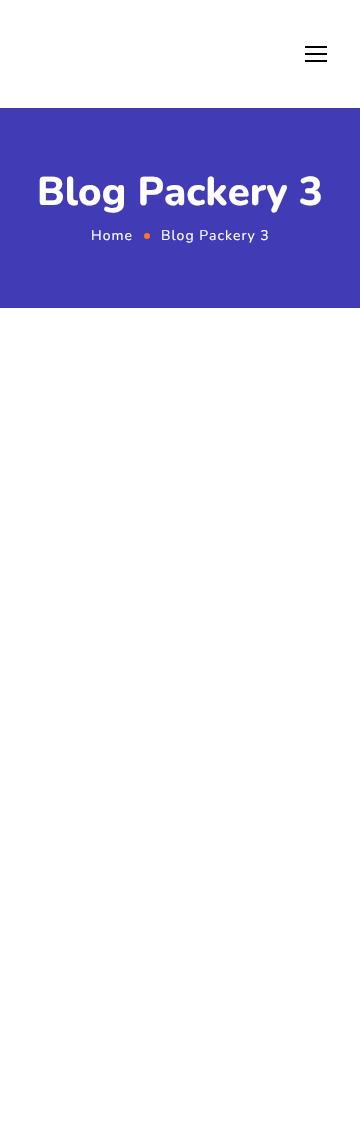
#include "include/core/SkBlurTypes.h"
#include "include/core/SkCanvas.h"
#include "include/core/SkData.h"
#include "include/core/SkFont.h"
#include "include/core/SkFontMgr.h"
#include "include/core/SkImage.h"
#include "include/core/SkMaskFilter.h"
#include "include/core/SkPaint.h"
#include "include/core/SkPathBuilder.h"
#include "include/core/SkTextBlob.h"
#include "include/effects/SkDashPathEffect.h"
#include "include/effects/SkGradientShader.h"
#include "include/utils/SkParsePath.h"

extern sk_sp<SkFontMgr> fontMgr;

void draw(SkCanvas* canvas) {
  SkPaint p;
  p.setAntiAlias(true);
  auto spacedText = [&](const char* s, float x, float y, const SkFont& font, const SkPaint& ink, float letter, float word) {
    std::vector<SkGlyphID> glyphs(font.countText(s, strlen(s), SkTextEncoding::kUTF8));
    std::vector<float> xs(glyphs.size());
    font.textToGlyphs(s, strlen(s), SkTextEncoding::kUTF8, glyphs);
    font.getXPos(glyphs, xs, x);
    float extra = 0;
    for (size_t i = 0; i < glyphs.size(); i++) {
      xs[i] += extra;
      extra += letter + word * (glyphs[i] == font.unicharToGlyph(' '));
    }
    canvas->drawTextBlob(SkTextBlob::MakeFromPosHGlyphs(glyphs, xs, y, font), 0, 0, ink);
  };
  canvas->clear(SK_ColorWHITE);
  p.setColor(SK_ColorBLACK);
  canvas->drawRect(SkRect::MakeLTRB(305, 53, 327, 55), p);
  canvas->drawRect(SkRect::MakeLTRB(305, 46, 327, 48), p);
  canvas->drawRect(SkRect::MakeLTRB(305, 60, 327, 62), p);
  p.setColor(SkColorSetRGB(66, 59, 182));
  canvas->drawRect(SkRect::MakeLTRB(0, 108, 360, 308), p);
  p.setColor(SkColorSetRGB(255, 116, 38));
  canvas->drawCircle(147, 236, 3, p);
  SkFont font1(fontMgr->matchFamilyStyle("Nunito", SkFontStyle(800, SkFontStyle::kNormal_Width, SkFontStyle::kUpright_Slant)), 40);
  font1.setSubpixel(true);
  p.setColor(SK_ColorWHITE);
  canvas->drawString("Blog Packery 3", 37, 205, font1, p);
  SkFont font2(fontMgr->matchFamilyStyle("Nunito", SkFontStyle::Normal()), 14);
  font2.setSubpixel(true);
  spacedText("Home", 91, 240, font2, p, 1, 0);
  spacedText("Blog Packery 3", 161, 240, font2, p, 1, 0);
}
